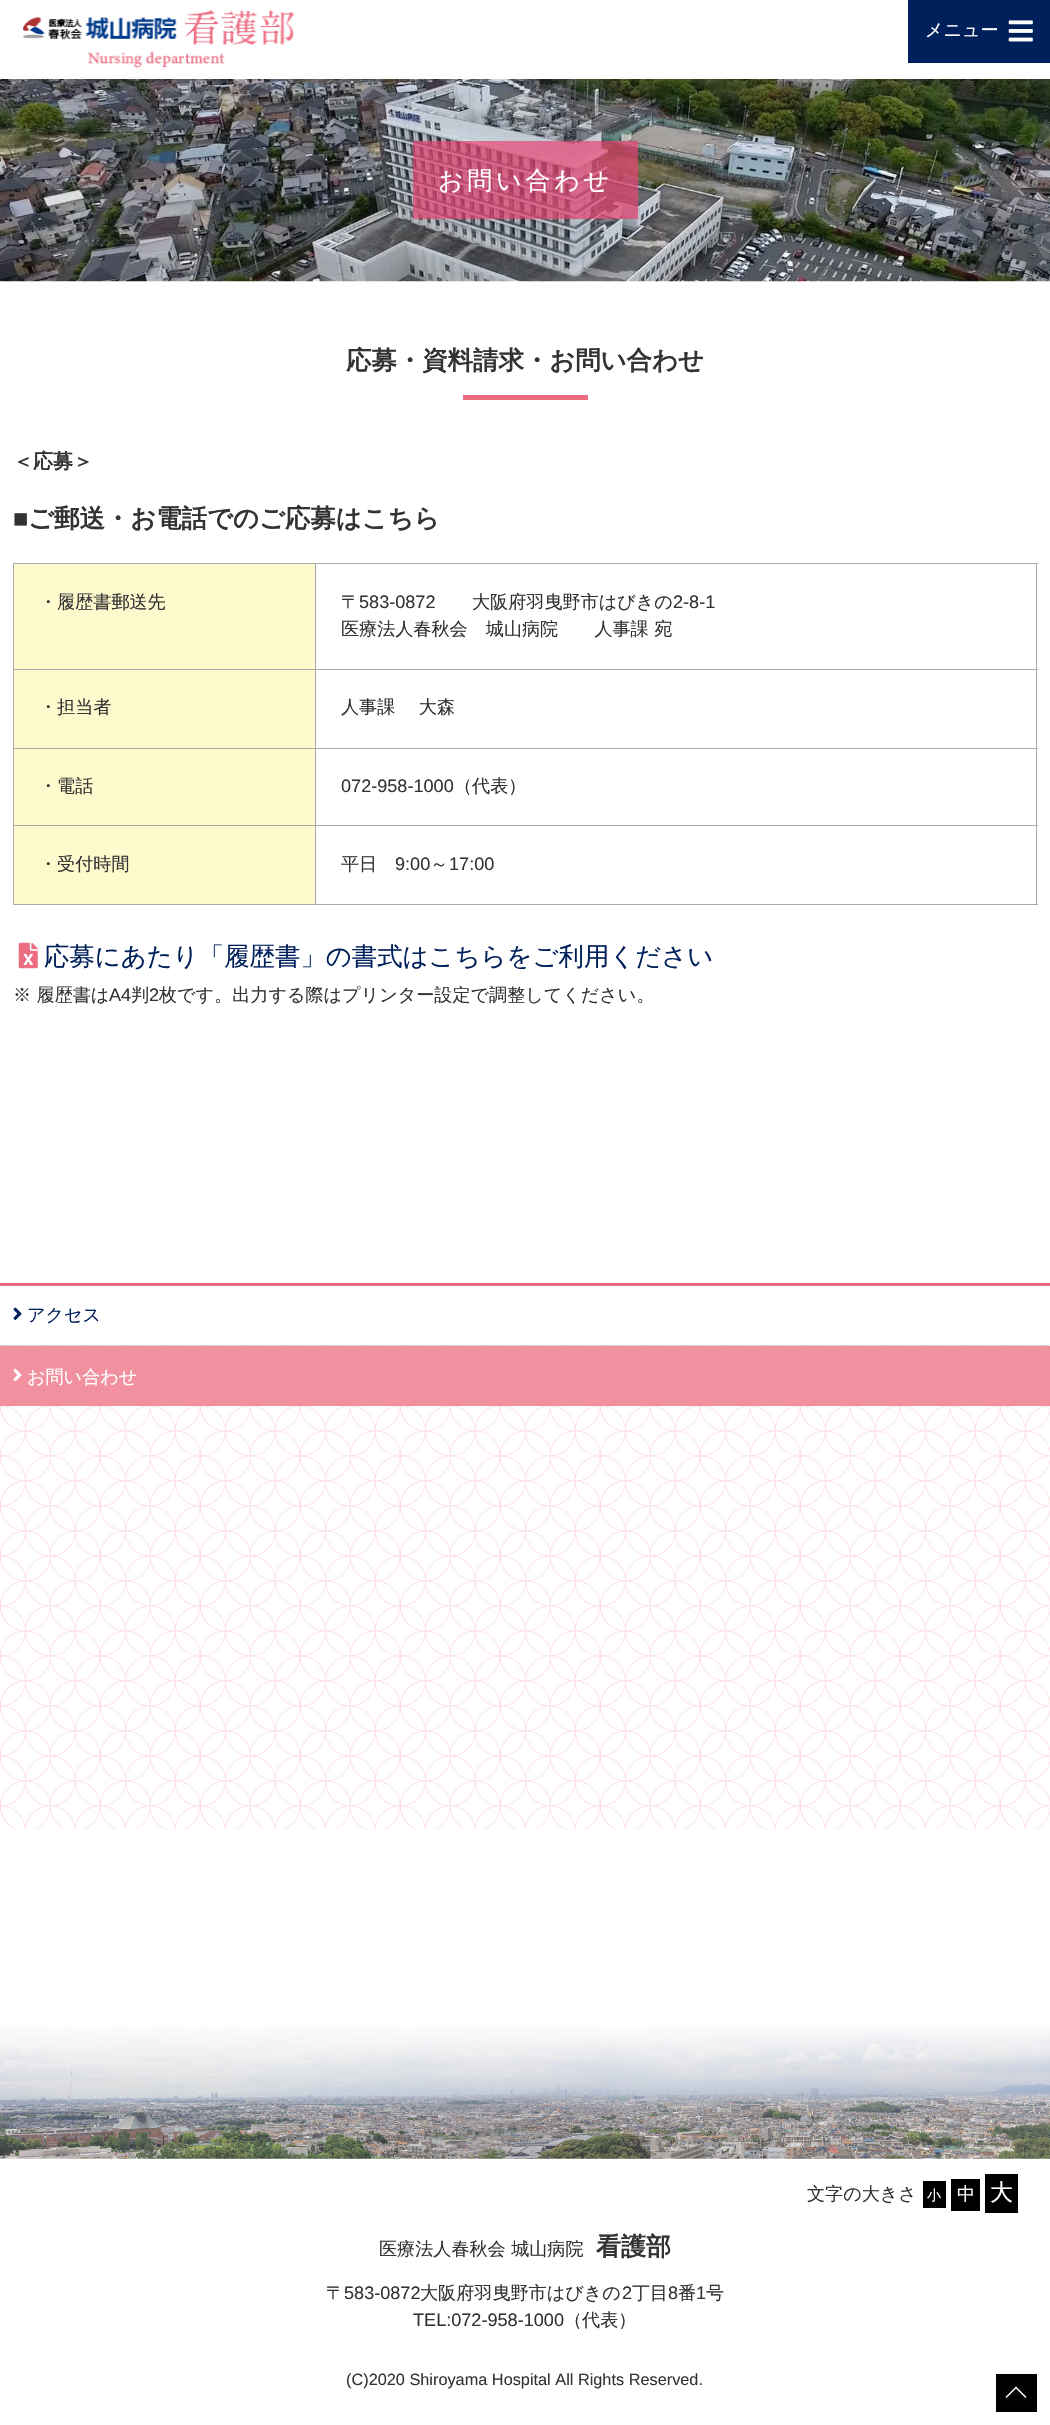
#include "include/core/SkBlurTypes.h"
#include "include/core/SkCanvas.h"
#include "include/core/SkData.h"
#include "include/core/SkFont.h"
#include "include/core/SkFontMgr.h"
#include "include/core/SkImage.h"
#include "include/core/SkMaskFilter.h"
#include "include/core/SkPaint.h"
#include "include/core/SkPathBuilder.h"
#include "include/core/SkTextBlob.h"
#include "include/effects/SkDashPathEffect.h"
#include "include/effects/SkGradientShader.h"
#include "include/utils/SkParsePath.h"

extern sk_sp<SkFontMgr> fontMgr;

void draw(SkCanvas* canvas) {
  SkPaint p;
  p.setAntiAlias(true);
  auto spacedText = [&](const char* s, float x, float y, const SkFont& font, const SkPaint& ink, float letter, float word) {
    std::vector<SkGlyphID> glyphs(font.countText(s, strlen(s), SkTextEncoding::kUTF8));
    std::vector<float> xs(glyphs.size());
    font.textToGlyphs(s, strlen(s), SkTextEncoding::kUTF8, glyphs);
    font.getXPos(glyphs, xs, x);
    float extra = 0;
    for (size_t i = 0; i < glyphs.size(); i++) {
      xs[i] += extra;
      extra += letter + word * (glyphs[i] == font.unicharToGlyph(' '));
    }
    canvas->drawTextBlob(SkTextBlob::MakeFromPosHGlyphs(glyphs, xs, y, font), 0, 0, ink);
  };
  canvas->clear(SK_ColorWHITE);
  canvas->drawImageRect(SkImages::DeferredFromEncodedData(SkData::MakeFromFileName("images/1.png")), SkRect::MakeLTRB(23, 10, 295, 68), SkSamplingOptions());
  p.setColor(SkColorSetRGB(0, 32, 91));
  canvas->drawRect(SkRect::MakeLTRB(908, 0, 1050, 63), p);
  canvas->drawImageRect(SkImages::DeferredFromEncodedData(SkData::MakeFromFileName("images/2.png")), SkRect::MakeLTRB(1008, 20, 1033, 42), SkSamplingOptions());
  canvas->drawImageRect(SkImages::DeferredFromEncodedData(SkData::MakeFromFileName("images/3.png")), SkRect::MakeLTRB(0, 79, 1050, 282), SkSamplingOptions());
  p.setColor(SkColorSetARGB(179, 231, 68, 114));
  canvas->drawRect(SkRect::MakeLTRB(413, 141, 638, 219), p);
  p.setColor(SkColorSetRGB(236, 109, 129));
  canvas->drawRect(SkRect::MakeLTRB(463, 395, 588, 400), p);
  p.setColor(SkColorSetRGB(170, 170, 170));
  canvas->drawRect(SkRect::MakeLTRB(13, 563, 1038, 904), p);
  p.setColor(SK_ColorWHITE);
  canvas->drawRect(SkRect::MakeLTRB(316, 564, 1038, 669), p);
  canvas->drawRect(SkRect::MakeLTRB(316, 670, 1038, 748), p);
  canvas->drawRect(SkRect::MakeLTRB(316, 749, 1038, 825), p);
  canvas->drawRect(SkRect::MakeLTRB(316, 826, 1038, 904), p);
  p.setColor(SkColorSetRGB(170, 170, 170));
  canvas->drawRect(SkRect::MakeLTRB(1036, 563, 1037, 905), p);
  canvas->drawRect(SkRect::MakeLTRB(13, 904, 1038, 905), p);
  p.setColor(SkColorSetRGB(255, 250, 205));
  canvas->drawRect(SkRect::MakeLTRB(14, 564, 315, 669), p);
  canvas->drawRect(SkRect::MakeLTRB(14, 670, 315, 748), p);
  canvas->drawRect(SkRect::MakeLTRB(14, 749, 315, 825), p);
  canvas->drawRect(SkRect::MakeLTRB(14, 826, 315, 904), p);
  canvas->drawImageRect(SkImages::DeferredFromEncodedData(SkData::MakeFromFileName("images/4.png")), SkRect::MakeLTRB(18, 942, 38, 969), SkSamplingOptions());
  p.setColor(SkColorSetRGB(236, 109, 129));
  canvas->drawRect(SkRect::MakeLTRB(0, 1283, 1050, 1286), p);
  p.setStyle(SkPaint::kStroke_Style);
  p.setStrokeWidth(1.2f);
  p.setColor(SkColorSetRGB(170, 170, 170));
  p.setPathEffect(SkDashPathEffect::Make({{1.25f, 1.25f}}, 0));
  canvas->drawPath(SkPathBuilder().moveTo(0, 1345.5f).lineTo(1050, 1345.5f).detach(), p);
  p.setPathEffect(nullptr);
  canvas->drawImageRect(SkImages::DeferredFromEncodedData(SkData::MakeFromFileName("images/5.png")), SkRect::MakeLTRB(13, 1307, 22, 1320), SkSamplingOptions());
  p.setStyle(SkPaint::kFill_Style);
  p.setColor(SkColorSetRGB(241, 145, 160));
  canvas->drawRect(SkRect::MakeLTRB(0, 1346, 1050, 1406), p);
  canvas->drawImageRect(SkImages::DeferredFromEncodedData(SkData::MakeFromFileName("images/6.png")), SkRect::MakeLTRB(13, 1368, 22, 1382), SkSamplingOptions());
  p.setColor(SK_ColorBLACK);
  canvas->drawRect(SkRect::MakeLTRB(996, 2374, 1037, 2412), p);
  p.setStyle(SkPaint::kStroke_Style);
  p.setStrokeWidth(1.5f);
  p.setColor(SK_ColorWHITE);
  canvas->drawPath(SkPathBuilder().moveTo(1006, 2397.5f).lineTo(1016, 2387.5f).lineTo(1026, 2397.5f).detach(), p);
  canvas->drawImageRect(SkImages::DeferredFromEncodedData(SkData::MakeFromFileName("images/7.png")), SkRect::MakeLTRB(0, 1406, 1050, 1829), SkSamplingOptions());
  canvas->drawImageRect(SkImages::DeferredFromEncodedData(SkData::MakeFromFileName("images/8.png")), SkRect::MakeLTRB(0, 2025, 1050, 2159), SkSamplingOptions());
  p.setStyle(SkPaint::kFill_Style);
  p.setColor(SK_ColorBLACK);
  canvas->drawRect(SkRect::MakeLTRB(923, 2181, 946, 2208), p);
  canvas->drawRect(SkRect::MakeLTRB(951, 2179, 980, 2211), p);
  canvas->drawRect(SkRect::MakeLTRB(985, 2174, 1018, 2213), p);
  SkFont font1(fontMgr->matchFamilyStyle("WenQuanYi Zen Hei", SkFontStyle(500, SkFontStyle::kNormal_Width, SkFontStyle::kUpright_Slant)), 18.1f);
  font1.setSubpixel(true);
  p.setColor(SK_ColorWHITE);
  canvas->drawString("メニュー", 925, 36, font1, p);
  SkFont font2(fontMgr->matchFamilyStyle("WenQuanYi Zen Hei", SkFontStyle(500, SkFontStyle::kNormal_Width, SkFontStyle::kUpright_Slant)), 25);
  font2.setSubpixel(true);
  spacedText("お問い合わせ", 438, 189, font2, p, 3.75f, 0);
  SkFont font3(fontMgr->matchFamilyStyle("WenQuanYi Zen Hei", SkFontStyle::Bold()), 25.4f);
  font3.setSubpixel(true);
  p.setColor(SkColorSetRGB(51, 51, 51));
  canvas->drawString("応募・資料請求・お問い合わせ", 346, 369, font3, p);
  SkFont font4(fontMgr->matchFamilyStyle("WenQuanYi Zen Hei", SkFontStyle::Bold()), 20);
  font4.setSubpixel(true);
  canvas->drawString("＜応募＞", 13, 468, font4, p);
  SkFont font5(fontMgr->matchFamilyStyle("Liberation Sans", SkFontStyle::Bold()), 25.4f);
  font5.setSubpixel(true);
  canvas->drawString("■", 13, 527, font5, p);
  canvas->drawString("ご郵送・お電話でのご応募はこちら", 28, 527, font3, p);
  canvas->drawString("・履歴書郵送先", 39, 608, font1, p);
  canvas->drawString("〒", 341, 608, font1, p);
  SkFont font6(fontMgr->matchFamilyStyle("Liberation Sans", SkFontStyle::Normal()), 18.1f);
  font6.setSubpixel(true);
  canvas->drawString("583-0872", 359, 608, font6, p);
  canvas->drawString("大阪府羽曳野市はびきの", 472, 608, font1, p);
  canvas->drawString("2-8-1", 673, 608, font6, p);
  canvas->drawString("医療法人春秋会　城山病院　　人事課 宛", 341, 635, font1, p);
  canvas->drawString("・担当者", 39, 713, font1, p);
  canvas->drawString("人事課 　大森", 341, 713, font1, p);
  canvas->drawString("・電話", 39, 792, font1, p);
  canvas->drawString("072-958-1000", 341, 792, font6, p);
  canvas->drawString("（代表）", 454, 792, font1, p);
  canvas->drawString("・受付時間", 39, 870, font1, p);
  canvas->drawString("平日", 341, 870, font1, p);
  canvas->drawString("9:00", 395, 870, font6, p);
  canvas->drawString("～", 430, 870, font1, p);
  canvas->drawString("17:00", 449, 870, font6, p);
  SkFont font7(fontMgr->matchFamilyStyle("WenQuanYi Zen Hei", SkFontStyle(500, SkFontStyle::kNormal_Width, SkFontStyle::kUpright_Slant)), 25.4f);
  font7.setSubpixel(true);
  p.setColor(SkColorSetRGB(0, 32, 91));
  canvas->drawString("応募にあたり「履歴書」の書式はこちらをご利用ください", 44, 965, font7, p);
  p.setColor(SkColorSetRGB(51, 51, 51));
  canvas->drawString("※ 履歴書は", 13, 1001, font1, p);
  canvas->drawString("A4", 109, 1001, font6, p);
  canvas->drawString("判", 131, 1001, font1, p);
  canvas->drawString("2", 149, 1001, font6, p);
  canvas->drawString("枚です。出力する際はプリンター設定で調整してください。", 159, 1001, font1, p);
  p.setColor(SkColorSetRGB(0, 32, 91));
  canvas->drawString("アクセス", 27, 1321, font1, p);
  p.setColor(SK_ColorWHITE);
  canvas->drawString("お問い合わせ", 27, 1383, font1, p);
  p.setColor(SkColorSetRGB(51, 51, 51));
  canvas->drawString("文字の大きさ", 807, 2200, font1, p);
  SkFont font8(fontMgr->matchFamilyStyle("WenQuanYi Zen Hei", SkFontStyle(500, SkFontStyle::kNormal_Width, SkFontStyle::kUpright_Slant)), 14);
  font8.setSubpixel(true);
  p.setColor(SK_ColorWHITE);
  canvas->drawString("小", 927, 2200, font8, p);
  canvas->drawString("中", 957, 2200, font1, p);
  SkFont font9(fontMgr->matchFamilyStyle("WenQuanYi Zen Hei", SkFontStyle(500, SkFontStyle::kNormal_Width, SkFontStyle::kUpright_Slant)), 23);
  font9.setSubpixel(true);
  canvas->drawString("大", 990, 2200, font9, p);
  p.setColor(SkColorSetRGB(51, 51, 51));
  canvas->drawString("医療法人春秋会 城山病院", 379, 2255, font1, p);
  SkFont font10(fontMgr->matchFamilyStyle("WenQuanYi Zen Hei", SkFontStyle::Bold()), 25);
  font10.setSubpixel(true);
  canvas->drawString("看護部", 596, 2255, font10, p);
  canvas->drawString("〒", 326, 2299, font1, p);
  canvas->drawString("583-0872", 344, 2299, font6, p);
  canvas->drawString("大阪府羽曳野市はびきの", 420, 2299, font1, p);
  canvas->drawString("2", 622, 2299, font6, p);
  canvas->drawString("丁目", 632, 2299, font1, p);
  canvas->drawString("8", 668, 2299, font6, p);
  canvas->drawString("番", 678, 2299, font1, p);
  canvas->drawString("1", 696, 2299, font6, p);
  canvas->drawString("号", 706, 2299, font1, p);
  canvas->drawString("TEL:072-958-1000", 413, 2326, font6, p);
  canvas->drawString("（代表）", 564, 2326, font1, p);
  SkFont font11(fontMgr->matchFamilyStyle("Liberation Sans", SkFontStyle::Normal()), 16.3f);
  font11.setSubpixel(true);
  canvas->drawString("(C)2020 Shiroyama Hospital All Rights Reserved.", 346, 2385, font11, p);
}
